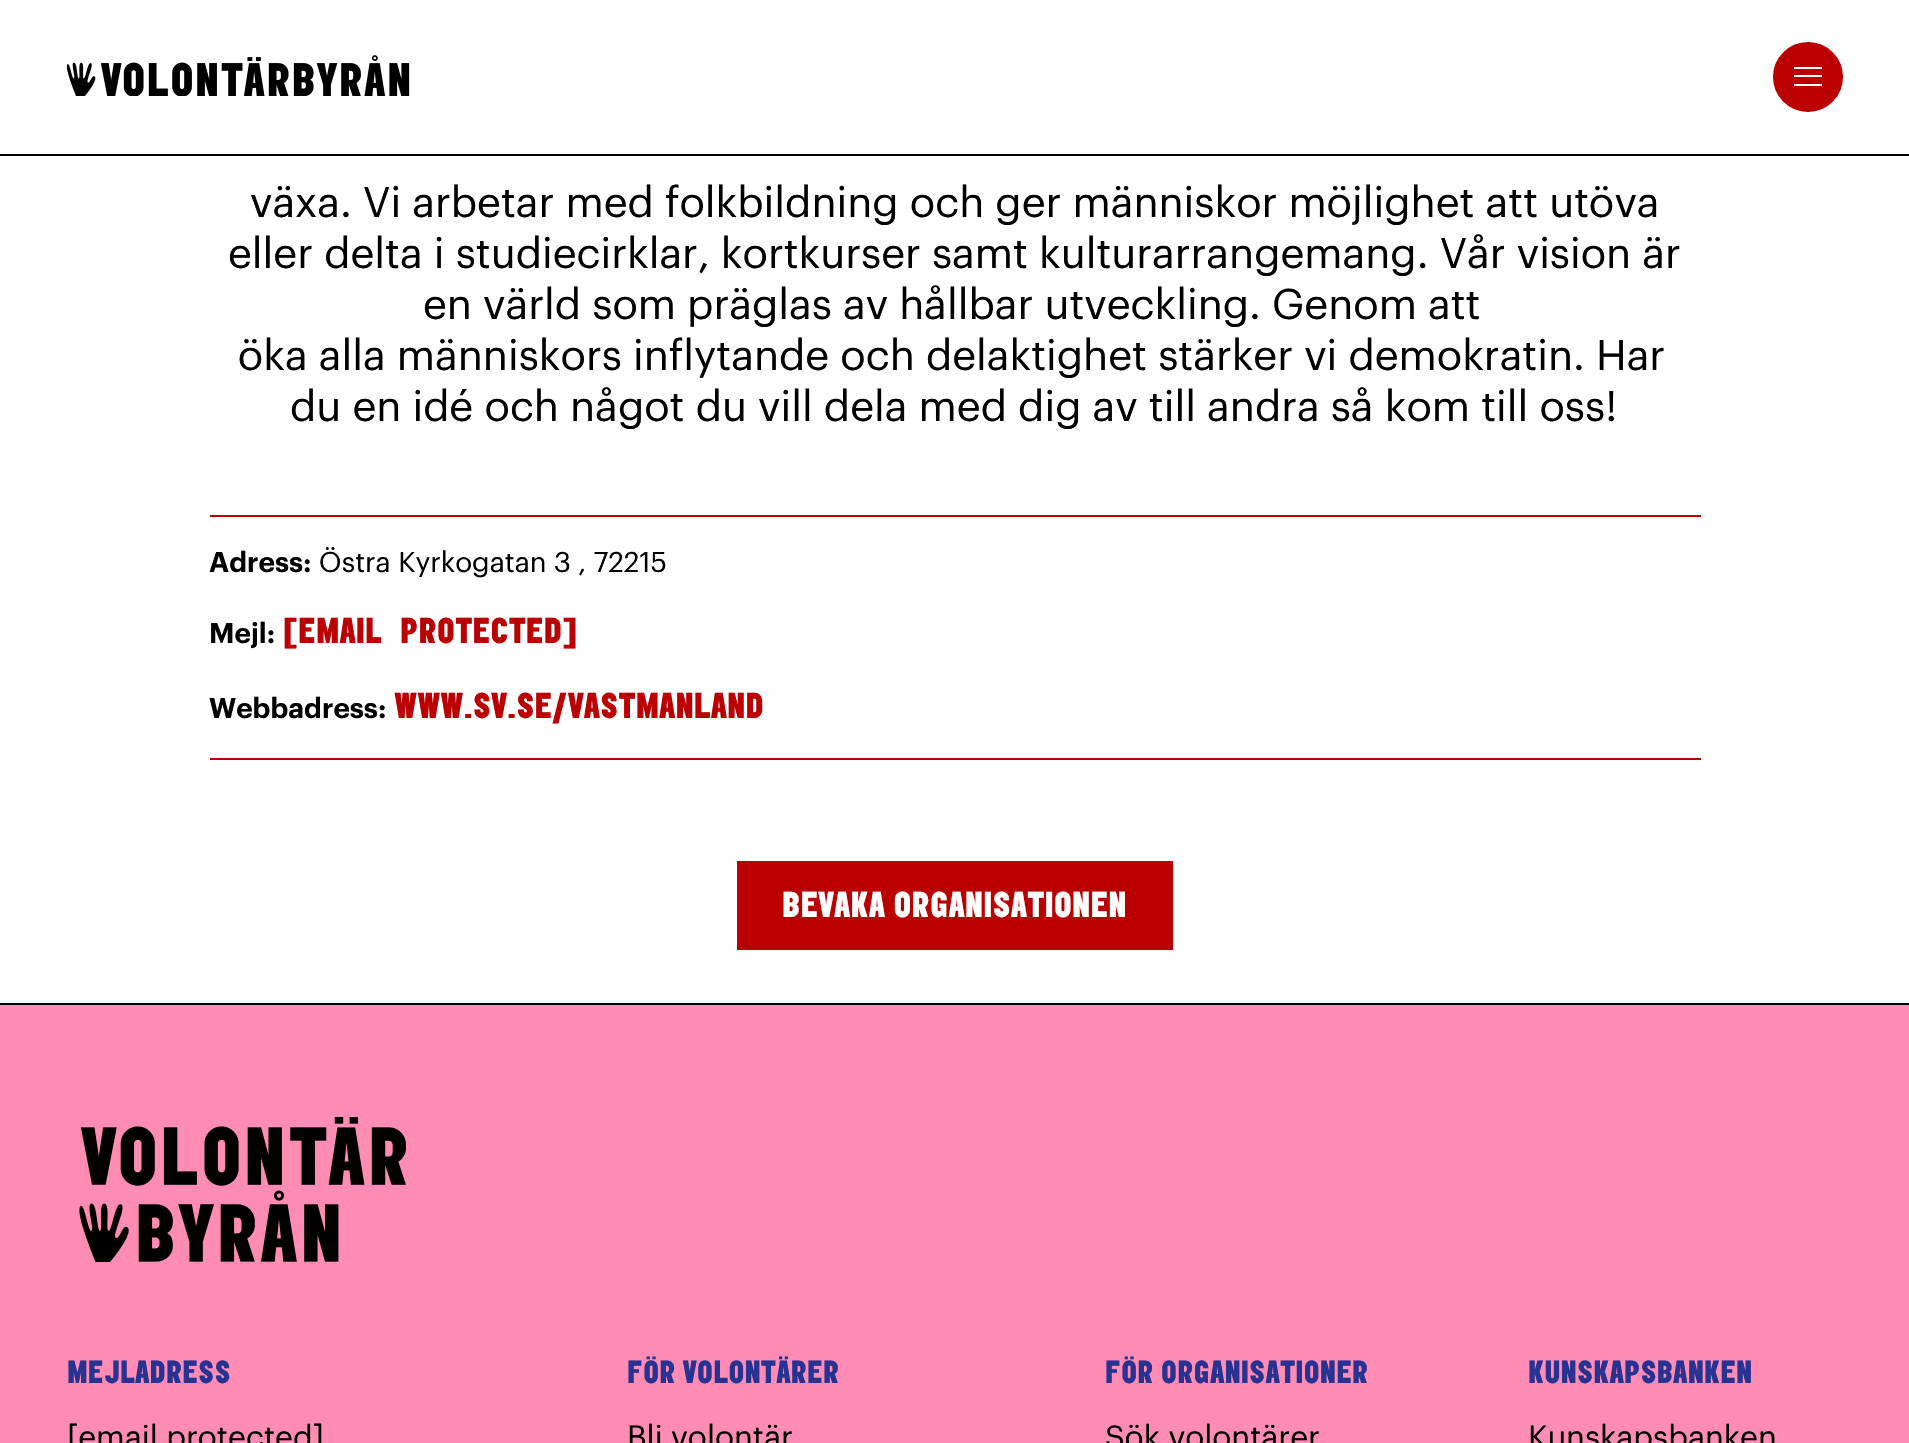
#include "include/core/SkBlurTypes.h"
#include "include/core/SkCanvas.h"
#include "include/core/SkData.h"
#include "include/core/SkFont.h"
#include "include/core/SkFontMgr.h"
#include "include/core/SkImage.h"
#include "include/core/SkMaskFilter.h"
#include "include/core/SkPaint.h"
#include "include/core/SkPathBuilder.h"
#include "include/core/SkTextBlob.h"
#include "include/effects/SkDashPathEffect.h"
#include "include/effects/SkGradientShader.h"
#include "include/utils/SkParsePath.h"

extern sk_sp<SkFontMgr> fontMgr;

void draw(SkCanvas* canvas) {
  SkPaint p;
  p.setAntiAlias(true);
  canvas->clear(SK_ColorWHITE);
  p.setColor(SK_ColorBLACK);
  canvas->drawRect(SkRect::MakeLTRB(0, 154, 1909, 156), p);
  canvas->drawImageRect(SkImages::DeferredFromEncodedData(SkData::MakeFromFileName("images/1.png")), SkRect::MakeLTRB(67, 55, 410, 96), SkSamplingOptions());
  p.setColor(SkColorSetRGB(186, 0, 0));
  canvas->drawCircle(1808, 77, 33, p);
  p.setStyle(SkPaint::kStroke_Style);
  p.setStrokeWidth(4);
  canvas->drawCircle(1808, 77, 33, p);
  p.setStyle(SkPaint::kFill_Style);
  p.setColor(SK_ColorWHITE);
  canvas->drawRect(SkRect::MakeLTRB(1794, 75, 1822, 77), p);
  canvas->drawRect(SkRect::MakeLTRB(1794, 67, 1822, 69), p);
  canvas->drawRect(SkRect::MakeLTRB(1794, 84, 1822, 86), p);
  p.setColor(SkColorSetRGB(186, 0, 0));
  canvas->drawRect(SkRect::MakeLTRB(210, 515, 1701, 517), p);
  canvas->drawRect(SkRect::MakeLTRB(210, 758, 1701, 760), p);
  canvas->drawRect(SkRect::MakeLTRB(737, 861, 1173, 950), p);
  p.setColor(SkColorSetRGB(255, 140, 180));
  canvas->drawRect(SkRect::MakeLTRB(0, 1005, 1909, 1443), p);
  p.setColor(SK_ColorBLACK);
  canvas->drawRect(SkRect::MakeLTRB(0, 1003, 1909, 1005), p);
  canvas->drawImageRect(SkImages::DeferredFromEncodedData(SkData::MakeFromFileName("images/2.png")), SkRect::MakeLTRB(79, 1117, 406, 1262), SkSamplingOptions());
  SkFont font1(fontMgr->matchFamilyStyle("Graphik", SkFontStyle::Normal()), 42);
  font1.setSubpixel(true);
  canvas->drawString("växa. Vi arbetar med folkbildning och ger människor möjlighet att utöva", 250, 217, font1, p);
  canvas->drawString("eller delta i studiecirklar, kortkurser samt kulturarrangemang. Vår vision är", 228, 268, font1, p);
  canvas->drawString("en värld som präglas av hållbar utveckling. Genom att", 423, 319, font1, p);
  canvas->drawString("öka alla människors inflytande och delaktighet stärker vi demokratin. Har", 238, 370, font1, p);
  canvas->drawString("du en idé och något du vill dela med dig av till andra så kom till oss!", 290, 421, font1, p);
  SkFont font2(fontMgr->matchFamilyStyle("Graphik", SkFontStyle(600, SkFontStyle::kNormal_Width, SkFontStyle::kUpright_Slant)), 28);
  font2.setSubpixel(true);
  canvas->drawString("Adress:", 209, 572, font2, p);
  SkFont font3(fontMgr->matchFamilyStyle("Graphik", SkFontStyle::Normal()), 28);
  font3.setSubpixel(true);
  canvas->drawString("Östra Kyrkogatan 3 , 72215", 319, 572, font3, p);
  canvas->drawString("Mejl:", 209, 643, font2, p);
  SkFont font4(fontMgr->matchFamilyStyle("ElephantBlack", SkFontStyle(900, SkFontStyle::kNormal_Width, SkFontStyle::kUpright_Slant)), 31.5f);
  font4.setSubpixel(true);
  p.setColor(SkColorSetRGB(186, 0, 0));
  canvas->drawString("[EMAIL", 283, 643, font4, p);
  canvas->drawString("PROTECTED]", 400, 643, font4, p);
  p.setColor(SK_ColorBLACK);
  canvas->drawString("Webbadress:", 209, 718, font2, p);
  p.setColor(SkColorSetRGB(186, 0, 0));
  canvas->drawString("WWW.SV.SE/VASTMANLAND", 394, 718, font4, p);
  p.setColor(SK_ColorWHITE);
  canvas->drawString("BEVAKA ORGANISATIONEN", 782, 917, font4, p);
  SkFont font5(fontMgr->matchFamilyStyle("ElephantBlack", SkFontStyle(900, SkFontStyle::kNormal_Width, SkFontStyle::kUpright_Slant)), 28);
  font5.setSubpixel(true);
  p.setColor(SkColorSetRGB(40, 50, 145));
  canvas->drawString("MEJLADRESS", 67, 1383, font5, p);
  SkFont font6(fontMgr->matchFamilyStyle("Graphik", SkFontStyle::Normal()), 31.5f);
  font6.setSubpixel(true);
  p.setColor(SK_ColorBLACK);
  canvas->drawString("[email protected]", 67, 1448, font6, p);
  p.setColor(SkColorSetRGB(40, 50, 145));
  canvas->drawString("FÖR VOLONTÄRER", 627, 1383, font5, p);
  p.setColor(SK_ColorBLACK);
  canvas->drawString("Bli volontär", 627, 1448, font6, p);
  p.setColor(SkColorSetRGB(40, 50, 145));
  canvas->drawString("FÖR ORGANISATIONER", 1105, 1383, font5, p);
  p.setColor(SK_ColorBLACK);
  canvas->drawString("Sök volontärer", 1105, 1448, font6, p);
  p.setColor(SkColorSetRGB(40, 50, 145));
  canvas->drawString("KUNSKAPSBANKEN", 1528, 1383, font5, p);
  p.setColor(SK_ColorBLACK);
  canvas->drawString("Kunskapsbanken", 1528, 1448, font6, p);
}
